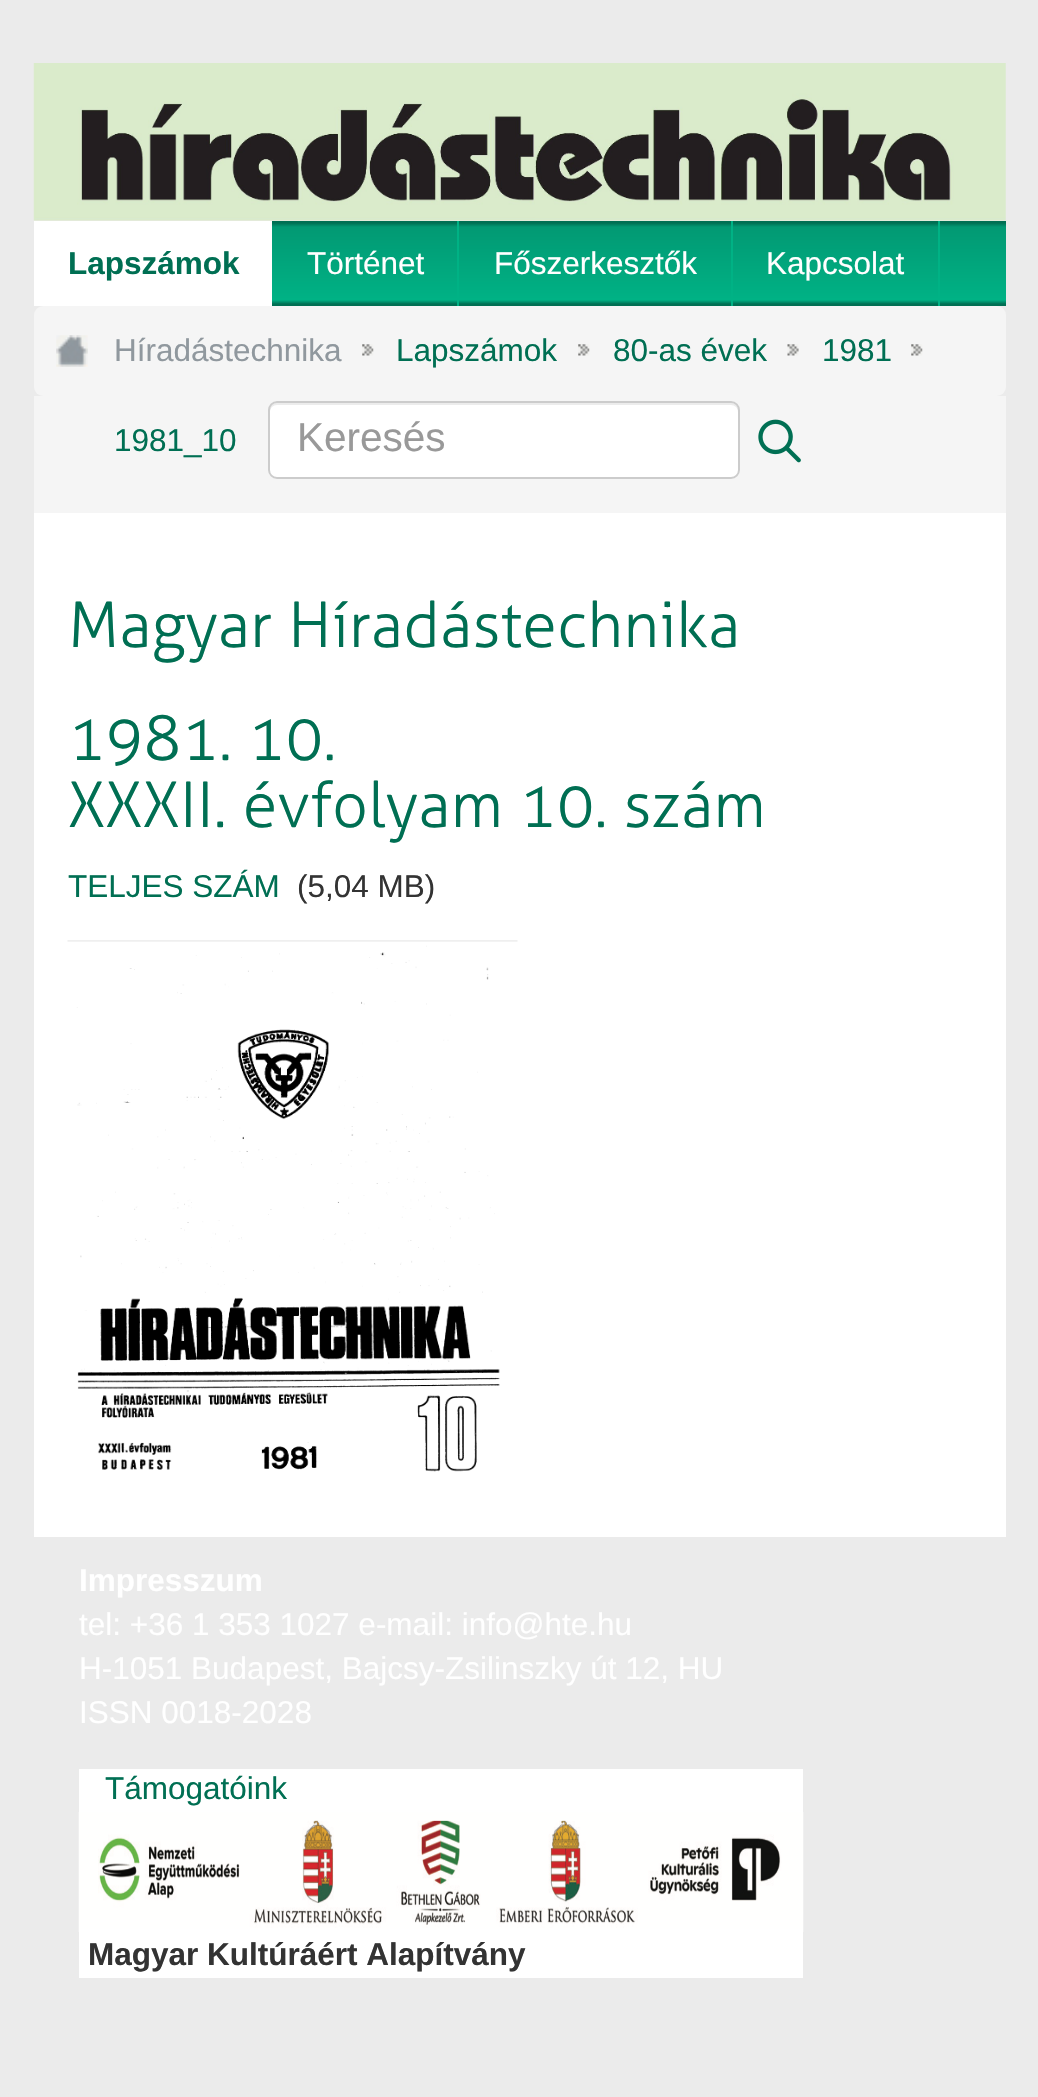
#include "include/core/SkBlurTypes.h"
#include "include/core/SkCanvas.h"
#include "include/core/SkData.h"
#include "include/core/SkFont.h"
#include "include/core/SkFontMgr.h"
#include "include/core/SkImage.h"
#include "include/core/SkMaskFilter.h"
#include "include/core/SkPaint.h"
#include "include/core/SkPathBuilder.h"
#include "include/core/SkTextBlob.h"
#include "include/effects/SkDashPathEffect.h"
#include "include/effects/SkGradientShader.h"
#include "include/utils/SkParsePath.h"

extern sk_sp<SkFontMgr> fontMgr;

void draw(SkCanvas* canvas) {
  SkPaint p;
  p.setAntiAlias(true);
  canvas->clear(SkColorSetRGB(235, 235, 235));
  canvas->drawImageRect(SkImages::DeferredFromEncodedData(SkData::MakeFromFileName("images/1.png")), SkRect::MakeLTRB(33, 63, 1006, 221), SkSamplingOptions());
  {
    const SkColor colors[] = {SkColorSetRGB(0, 111, 83), SkColorSetRGB(2, 153, 115), SkColorSetRGB(0, 178, 133), SkColorSetRGB(0, 111, 83)};
    const float stops[] = {0, 0.05f, 0.95f, 1};
    const SkPoint ends[] = {{520, 223}, {520, 304}};
    p.setShader(SkGradientShader::MakeLinear(ends, colors, stops, 4, SkTileMode::kClamp));
    p.setAlpha(255);
  }
  canvas->drawRect(SkRect::MakeLTRB(272, 223, 1006, 304), p);
  p.setShader(nullptr);
  p.setColor(SkColorSetRGB(0, 111, 83));
  canvas->drawRect(SkRect::MakeLTRB(272, 221, 1006, 223), p);
  canvas->drawRect(SkRect::MakeLTRB(272, 304, 1006, 306), p);
  p.setColor(SK_ColorWHITE);
  canvas->drawRect(SkRect::MakeLTRB(34, 221, 272, 306), p);
  p.setColor(SkColorSetRGB(0, 178, 133));
  canvas->drawRect(SkRect::MakeLTRB(457, 221, 459, 306), p);
  canvas->drawRect(SkRect::MakeLTRB(731, 221, 733, 306), p);
  canvas->drawRect(SkRect::MakeLTRB(938, 221, 940, 306), p);
  p.setColor(SkColorSetRGB(245, 245, 245));
  canvas->drawRoundRect(SkRect::MakeLTRB(34, 306, 1006, 396), 9, 9, p);
  canvas->drawImageRect(SkImages::DeferredFromEncodedData(SkData::MakeFromFileName("images/2.png")), SkRect::MakeLTRB(56, 335, 88, 367), SkSamplingOptions());
  canvas->drawImageRect(SkImages::DeferredFromEncodedData(SkData::MakeFromFileName("images/3.png")), SkRect::MakeLTRB(362, 344, 374, 356), SkSamplingOptions());
  canvas->drawImageRect(SkImages::DeferredFromEncodedData(SkData::MakeFromFileName("images/4.png")), SkRect::MakeLTRB(578, 344, 590, 356), SkSamplingOptions());
  canvas->drawImageRect(SkImages::DeferredFromEncodedData(SkData::MakeFromFileName("images/5.png")), SkRect::MakeLTRB(787, 344, 799, 356), SkSamplingOptions());
  canvas->drawImageRect(SkImages::DeferredFromEncodedData(SkData::MakeFromFileName("images/3.png")), SkRect::MakeLTRB(911, 344, 923, 356), SkSamplingOptions());
  canvas->drawRect(SkRect::MakeLTRB(34, 396, 1006, 513), p);
  p.setColor(SK_ColorWHITE);
  canvas->drawRoundRect(SkRect::MakeLTRB(268, 401, 740, 479), 9, 9, p);
  p.setColor(SkColorSetRGB(236, 236, 236));
  canvas->drawPath(SkPathBuilder().moveTo(277, 405).lineTo(731, 405).cubicTo(735, 405, 738, 408, 738, 412).lineTo(738, 410).cubicTo(738, 406, 735, 403, 731, 403).lineTo(277, 403).cubicTo(273, 403, 270, 406, 270, 410).lineTo(270, 412).cubicTo(270, 408, 273, 405, 277, 405).close().detach(), p);
  p.setStyle(SkPaint::kStroke_Style);
  p.setStrokeWidth(2);
  p.setColor(SkColorSetRGB(204, 204, 204));
  canvas->drawRoundRect(SkRect::MakeLTRB(269, 402, 739, 478), 8, 8, p);
  canvas->drawImageRect(SkImages::DeferredFromEncodedData(SkData::MakeFromFileName("images/6.png")), SkRect::MakeLTRB(758, 419, 801, 463), SkSamplingOptions());
  p.setStyle(SkPaint::kFill_Style);
  p.setColor(SK_ColorWHITE);
  canvas->drawRect(SkRect::MakeLTRB(34, 513, 1006, 1537), p);
  canvas->drawImageRect(SkImages::DeferredFromEncodedData(SkData::MakeFromFileName("images/7.png")), SkRect::MakeLTRB(67, 940, 518, 1472), SkSamplingOptions());
  canvas->drawRect(SkRect::MakeLTRB(79, 1769, 803, 1978), p);
  canvas->drawImageRect(SkImages::DeferredFromEncodedData(SkData::MakeFromFileName("images/8.png")), SkRect::MakeLTRB(78, 1812, 804, 1932), SkSamplingOptions());
  SkFont font1(fontMgr->matchFamilyStyle("Liberation Sans", SkFontStyle::Bold()), 31.5f);
  font1.setSubpixel(true);
  p.setColor(SkColorSetRGB(0, 111, 83));
  canvas->drawString("Lapszámok", 68, 274, font1, p);
  SkFont font2(fontMgr->matchFamilyStyle("Liberation Sans", SkFontStyle::Normal()), 31.5f);
  font2.setSubpixel(true);
  p.setColor(SK_ColorWHITE);
  canvas->drawString("Történet", 307, 274, font2, p);
  canvas->drawString("Főszerkesztők", 494, 274, font2, p);
  canvas->drawString("Kapcsolat", 766, 274, font2, p);
  p.setColor(SkColorSetRGB(144, 152, 158));
  canvas->drawString("Híradástechnika", 114, 361, font2, p);
  p.setColor(SkColorSetRGB(0, 111, 83));
  canvas->drawString("Lapszámok", 396, 361, font2, p);
  canvas->drawString("80-as évek", 613, 361, font2, p);
  canvas->drawString("1981", 822, 361, font2, p);
  canvas->drawString("1981_10", 114, 451, font2, p);
  SkFont font3(fontMgr->matchFamilyStyle("Liberation Sans", SkFontStyle::Normal()), 40.5f);
  font3.setSubpixel(true);
  p.setColor(SkColorSetRGB(153, 153, 153));
  canvas->drawString("Keresés", 297, 451, font3, p);
  SkFont font4(fontMgr->matchFamilyStyle("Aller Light", SkFontStyle(300, SkFontStyle::kNormal_Width, SkFontStyle::kUpright_Slant)), 63);
  font4.setSubpixel(true);
  p.setColor(SkColorSetRGB(0, 111, 83));
  canvas->drawString("Magyar Híradástechnika", 68, 647, font4, p);
  canvas->drawString("1981. 10.", 68, 760, font4, p);
  canvas->drawString("XXXII. évfolyam 10. szám", 68, 827, font4, p);
  canvas->drawString("TELJES SZÁM", 68, 897, font2, p);
  p.setColor(SkColorSetRGB(51, 51, 51));
  canvas->drawString("(5,04 MB)", 297, 897, font2, p);
  p.setColor(SK_ColorWHITE);
  canvas->drawString("Impresszum", 79, 1591, font1, p);
  canvas->drawString("tel: +36 1 353 1027 e-mail: info@hte.hu", 79, 1635, font2, p);
  canvas->drawString("H-1051 Budapest, Bajcsy-Zsilinszky út 12, HU", 79, 1679, font2, p);
  canvas->drawString("ISSN 0018-2028", 79, 1723, font2, p);
  p.setColor(SkColorSetRGB(0, 111, 83));
  canvas->drawString("Támogatóink", 105, 1799, font2, p);
  p.setColor(SkColorSetRGB(51, 51, 51));
  canvas->drawString("Magyar Kultúráért Alapítvány", 88, 1965, font1, p);
}
